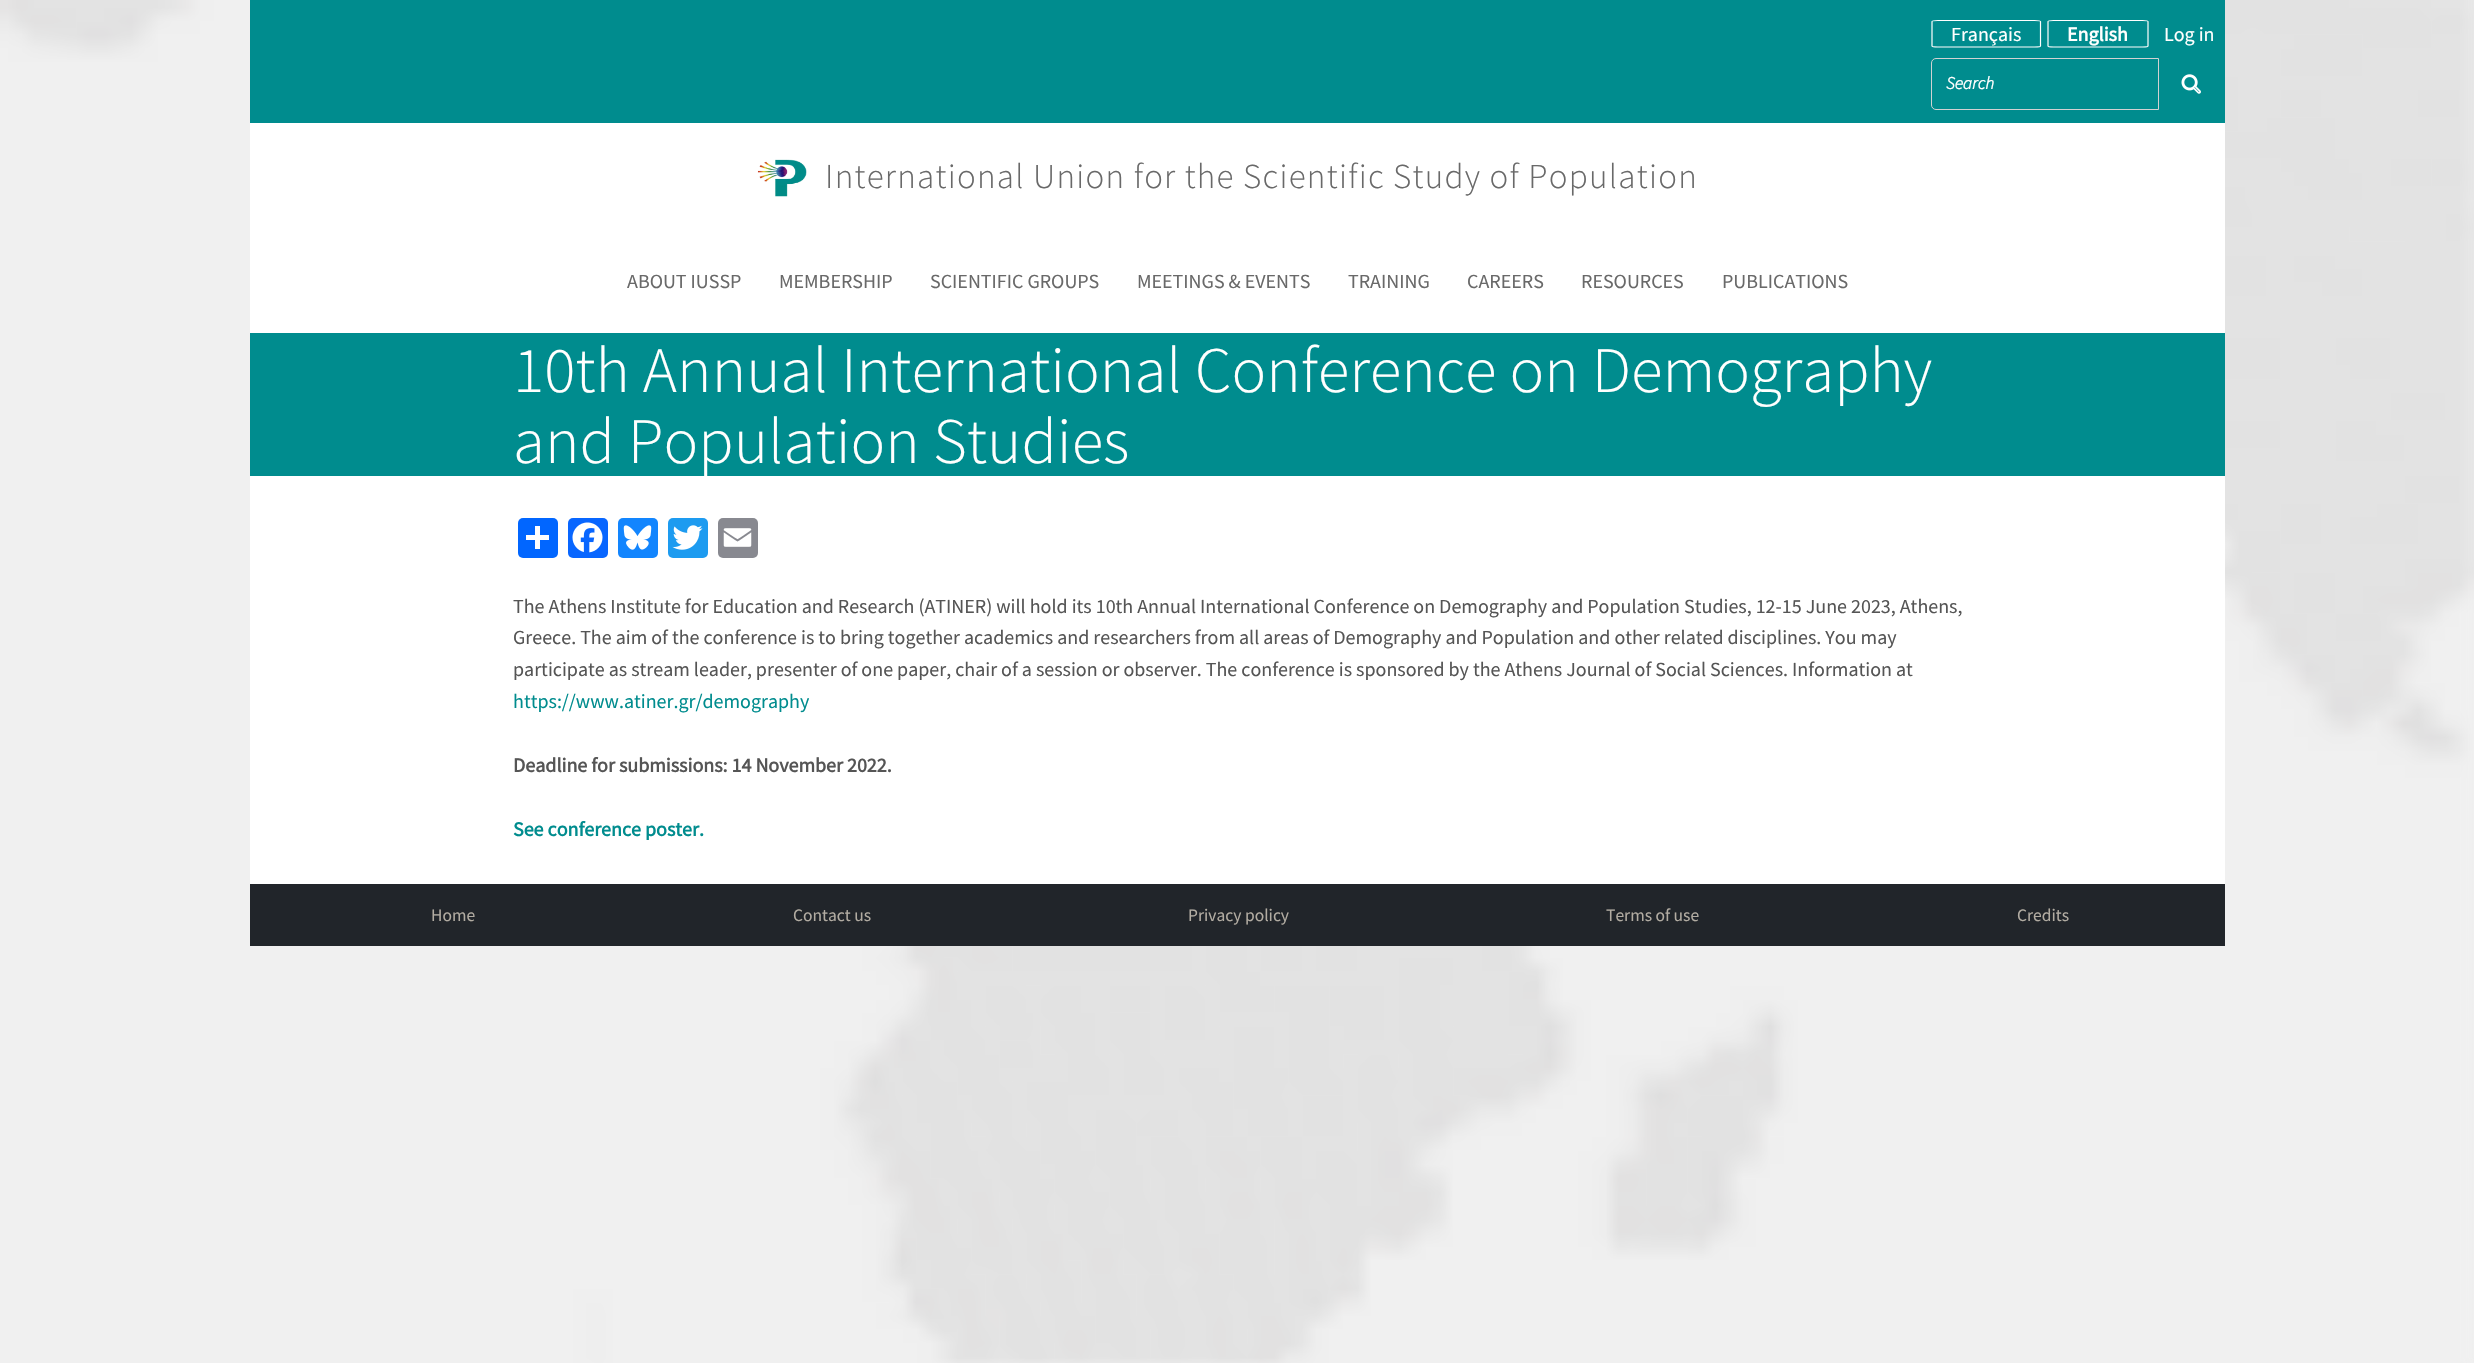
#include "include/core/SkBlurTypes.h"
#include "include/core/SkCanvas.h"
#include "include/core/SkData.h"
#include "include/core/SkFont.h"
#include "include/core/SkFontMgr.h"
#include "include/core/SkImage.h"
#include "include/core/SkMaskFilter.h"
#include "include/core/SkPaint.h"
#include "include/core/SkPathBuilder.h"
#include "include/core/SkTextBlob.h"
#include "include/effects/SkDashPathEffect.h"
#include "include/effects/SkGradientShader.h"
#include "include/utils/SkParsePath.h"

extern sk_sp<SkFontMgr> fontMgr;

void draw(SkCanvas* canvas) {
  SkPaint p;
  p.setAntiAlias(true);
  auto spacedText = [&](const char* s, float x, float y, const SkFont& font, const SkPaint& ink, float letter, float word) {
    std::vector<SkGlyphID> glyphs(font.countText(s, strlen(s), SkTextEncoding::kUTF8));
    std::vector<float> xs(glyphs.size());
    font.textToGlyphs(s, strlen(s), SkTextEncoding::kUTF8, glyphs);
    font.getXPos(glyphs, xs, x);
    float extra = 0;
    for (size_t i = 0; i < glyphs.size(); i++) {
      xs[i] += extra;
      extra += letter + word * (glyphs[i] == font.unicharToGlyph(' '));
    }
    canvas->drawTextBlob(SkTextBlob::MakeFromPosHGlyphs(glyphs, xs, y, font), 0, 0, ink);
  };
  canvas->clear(SkColorSetRGB(239, 239, 239));
  canvas->drawImageRect(SkImages::DeferredFromEncodedData(SkData::MakeFromFileName("images/1.png")), SkRect::MakeLTRB(0, 0, 2474, 1363), SkSamplingOptions());
  p.setColor(SK_ColorWHITE);
  canvas->drawRect(SkRect::MakeLTRB(250, 123, 2225, 884), p);
  p.setColor(SkColorSetRGB(0, 140, 142));
  canvas->drawRect(SkRect::MakeLTRB(250, 0, 2225, 123), p);
  p.setStyle(SkPaint::kStroke_Style);
  p.setStrokeWidth(1.2f);
  p.setColor(SK_ColorWHITE);
  canvas->drawPath(SkPathBuilder().moveTo(1938, 20.5f).lineTo(2034.5f, 20.5f).cubicTo(2038, 20.5f, 2040.5f, 21, 2040.5f, 21.5f).lineTo(2040.5f, 46).cubicTo(2040.5f, 46.5f, 2038, 47, 2034.5f, 47).lineTo(1938, 47).cubicTo(1934.5f, 47, 1932, 46.5f, 1932, 46).lineTo(1932, 21.5f).cubicTo(1932, 21, 1934.5f, 20.5f, 1938, 20.5f).close().detach(), p);
  canvas->drawPath(SkPathBuilder().moveTo(2053.5f, 20.5f).lineTo(2142.5f, 20.5f).cubicTo(2145.5f, 20.5f, 2148, 21, 2148, 21.5f).lineTo(2148, 46).cubicTo(2148, 46.5f, 2145.5f, 47, 2142.5f, 47).lineTo(2053.5f, 47).cubicTo(2050.5f, 47, 2048, 46.5f, 2048, 46).lineTo(2048, 21.5f).cubicTo(2048, 21, 2050.5f, 20.5f, 2053.5f, 20.5f).close().detach(), p);
  p.setStrokeWidth(1);
  p.setColor(SkColorSetRGB(210, 210, 210));
  canvas->drawPath(SkPathBuilder().moveTo(1936, 58.5f).lineTo(2158.5f, 58.5f).lineTo(2158.5f, 109.5f).lineTo(1936, 109.5f).cubicTo(1933.5f, 109.5f, 1931.5f, 107.5f, 1931.5f, 105).lineTo(1931.5f, 63).cubicTo(1931.5f, 60.5f, 1933.5f, 58.5f, 1936, 58.5f).close().detach(), p);
  canvas->drawImageRect(SkImages::DeferredFromEncodedData(SkData::MakeFromFileName("images/2.png")), SkRect::MakeLTRB(2181, 74, 2201, 94), SkSamplingOptions());
  canvas->drawImageRect(SkImages::DeferredFromEncodedData(SkData::MakeFromFileName("images/3.png")), SkRect::MakeLTRB(757, 159, 807, 197), SkSamplingOptions());
  p.setStyle(SkPaint::kFill_Style);
  p.setColor(SkColorSetRGB(0, 140, 142));
  canvas->drawRect(SkRect::MakeLTRB(250, 333, 2225, 476), p);
  p.setColor(SkColorSetRGB(1, 102, 255));
  canvas->drawRoundRect(SkRect::MakeLTRB(518, 518, 558, 558), 5, 5, p);
  p.setColor(SK_ColorWHITE);
  canvas->drawRect(SkRect::MakeLTRB(535, 526, 540, 549), p);
  canvas->drawRect(SkRect::MakeLTRB(526, 535, 549, 540), p);
  p.setColor(SkColorSetRGB(8, 102, 255));
  canvas->drawRoundRect(SkRect::MakeLTRB(568, 518, 608, 558), 5, 5, p);
  canvas->drawImageRect(SkImages::DeferredFromEncodedData(SkData::MakeFromFileName("images/4.png")), SkRect::MakeLTRB(572, 522, 603, 553), SkSamplingOptions());
  p.setColor(SkColorSetRGB(18, 133, 254));
  canvas->drawRoundRect(SkRect::MakeLTRB(618, 518, 658, 558), 5, 5, p);
  canvas->drawImageRect(SkImages::DeferredFromEncodedData(SkData::MakeFromFileName("images/5.png")), SkRect::MakeLTRB(623, 525, 652, 550), SkSamplingOptions());
  p.setColor(SkColorSetRGB(29, 155, 240));
  canvas->drawRoundRect(SkRect::MakeLTRB(668, 518, 708, 558), 5, 5, p);
  canvas->drawImageRect(SkImages::DeferredFromEncodedData(SkData::MakeFromFileName("images/6.png")), SkRect::MakeLTRB(672, 525, 703, 550), SkSamplingOptions());
  p.setColor(SkColorSetRGB(136, 137, 144));
  canvas->drawRoundRect(SkRect::MakeLTRB(718, 518, 758, 558), 5, 5, p);
  canvas->drawImageRect(SkImages::DeferredFromEncodedData(SkData::MakeFromFileName("images/7.png")), SkRect::MakeLTRB(723, 528, 752, 547), SkSamplingOptions());
  p.setColor(SkColorSetRGB(33, 37, 42));
  canvas->drawRect(SkRect::MakeLTRB(250, 884, 2225, 946), p);
  SkFont font1(fontMgr->matchFamilyStyle("Source Sans Pro", SkFontStyle::Normal()), 20);
  font1.setSubpixel(true);
  p.setColor(SkColorSetRGB(255, 255, 254));
  canvas->drawString("Français", 1951, 41, font1, p);
  SkFont font2(fontMgr->matchFamilyStyle("Source Sans Pro", SkFontStyle::Bold()), 20);
  font2.setSubpixel(true);
  canvas->drawString("English", 2067, 41, font2, p);
  canvas->drawString("Log in", 2164, 41, font1, p);
  SkFont font3(fontMgr->matchFamilyStyle("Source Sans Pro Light", SkFontStyle::BoldItalic()), 17.5f);
  font3.setSubpixel(true);
  canvas->drawString("Search", 1946, 89, font3, p);
  SkFont font4(fontMgr->matchFamilyStyle("Source Sans Pro Light", SkFontStyle(300, SkFontStyle::kNormal_Width, SkFontStyle::kUpright_Slant)), 35);
  font4.setSubpixel(true);
  p.setColor(SkColorSetRGB(105, 105, 105));
  spacedText("International Union for the Scientific Study of Population", 825, 188, font4, p, 1.25f, 0);
  canvas->drawString("ABOUT IUSSP", 627, 288, font1, p);
  canvas->drawString("MEMBERSHIP", 779, 288, font1, p);
  canvas->drawString("SCIENTIFIC GROUPS", 930, 288, font1, p);
  canvas->drawString("MEETINGS & EVENTS", 1137, 288, font1, p);
  canvas->drawString("TRAINING", 1348, 288, font1, p);
  canvas->drawString("CAREERS", 1467, 288, font1, p);
  canvas->drawString("RESOURCES", 1581, 288, font1, p);
  canvas->drawString("PUBLICATIONS", 1722, 288, font1, p);
  SkFont font5(fontMgr->matchFamilyStyle("Source Sans Pro Light", SkFontStyle(300, SkFontStyle::kNormal_Width, SkFontStyle::kUpright_Slant)), 65);
  font5.setSubpixel(true);
  p.setColor(SkColorSetRGB(255, 255, 254));
  canvas->drawString("10th Annual International Conference on Demography", 513, 392, font5, p);
  canvas->drawString("and Population Studies", 513, 463, font5, p);
  p.setColor(SkColorSetRGB(85, 85, 85));
  canvas->drawString("The Athens Institute for Education and Research (ATINER) will hold its 10th Annual International Conference on Demography and Population Studies, 12-15 June 2023, Athens,", 513, 613, font1, p);
  canvas->drawString("Greece. The aim of the conference is to bring together academics and researchers from all areas of Demography and Population and other related disciplines. You may", 513, 644, font1, p);
  canvas->drawString("participate as stream leader, presenter of one paper, chair of a session or observer. The conference is sponsored by the Athens Journal of Social Sciences. Information at", 513, 676, font1, p);
  p.setColor(SkColorSetRGB(0, 140, 142));
  canvas->drawString("https://www.atiner.gr/demography", 513, 708, font1, p);
  p.setColor(SkColorSetRGB(85, 85, 85));
  canvas->drawString("Deadline for submissions: 14 November 2022.", 513, 772, font2, p);
  p.setColor(SkColorSetRGB(0, 140, 142));
  canvas->drawString("See conference poster.", 513, 836, font2, p);
  SkFont font6(fontMgr->matchFamilyStyle("Source Sans Pro", SkFontStyle::Normal()), 17.5f);
  font6.setSubpixel(true);
  p.setColor(SkColorSetRGB(178, 172, 162));
  canvas->drawString("Home", 431, 921, font6, p);
  canvas->drawString("Contact us", 793, 921, font6, p);
  canvas->drawString("Privacy policy", 1188, 921, font6, p);
  canvas->drawString("Terms of use", 1606, 921, font6, p);
  canvas->drawString("Credits", 2017, 921, font6, p);
}
